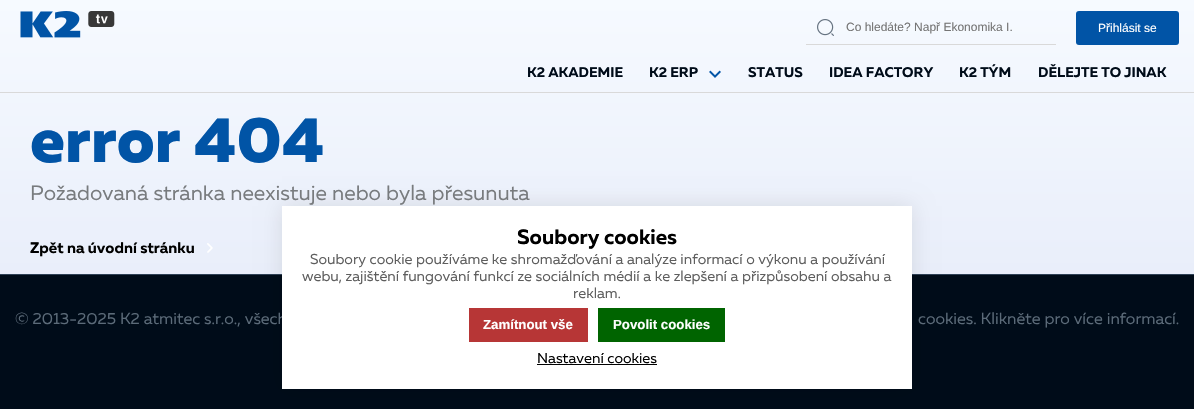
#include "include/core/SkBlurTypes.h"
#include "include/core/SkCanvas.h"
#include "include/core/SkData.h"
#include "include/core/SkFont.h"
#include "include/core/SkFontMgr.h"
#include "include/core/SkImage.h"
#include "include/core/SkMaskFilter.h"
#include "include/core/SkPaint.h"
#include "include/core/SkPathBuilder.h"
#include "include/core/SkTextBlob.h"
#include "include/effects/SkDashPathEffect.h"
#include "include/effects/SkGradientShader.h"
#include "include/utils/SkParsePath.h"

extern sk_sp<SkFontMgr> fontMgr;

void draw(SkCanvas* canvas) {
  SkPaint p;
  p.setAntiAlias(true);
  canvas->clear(SkColorSetRGB(0, 12, 25));
  {
    const SkColor colors[] = {SkColorSetRGB(2, 0, 36), SkColorSetRGB(233, 238, 250), SkColorSetRGB(246, 250, 255)};
    const float stops[] = {0, 0, 1};
    const SkPoint ends[] = {{597, 274}, {597, 0}};
    p.setShader(SkGradientShader::MakeLinear(ends, colors, stops, 3, SkTileMode::kClamp));
    p.setAlpha(255);
  }
  canvas->drawRect(SkRect::MakeLTRB(0, 0, 1194, 274), p);
  p.setShader(nullptr);
  p.setColor(SkColorSetRGB(217, 217, 217));
  canvas->drawRect(SkRect::MakeLTRB(0, 92, 1194, 93), p);
  canvas->drawImageRect(SkImages::DeferredFromEncodedData(SkData::MakeFromFileName("images/1.png")), SkRect::MakeLTRB(20, 11, 115, 38), SkSamplingOptions());
  canvas->drawImageRect(SkImages::DeferredFromEncodedData(SkData::MakeFromFileName("images/2.png")), SkRect::MakeLTRB(817, 19, 834, 36), SkSamplingOptions());
  canvas->drawRect(SkRect::MakeLTRB(806, 44, 1056, 45), p);
  p.setColor(SkColorSetRGB(1, 84, 166));
  canvas->drawRoundRect(SkRect::MakeLTRB(1076, 11, 1179, 45), 3, 3, p);
  canvas->drawImageRect(SkImages::DeferredFromEncodedData(SkData::MakeFromFileName("images/3.png")), SkRect::MakeLTRB(709, 70, 721, 78), SkSamplingOptions());
  canvas->drawImageRect(SkImages::DeferredFromEncodedData(SkData::MakeFromFileName("images/4.png")), SkRect::MakeLTRB(207, 243, 213, 253), SkSamplingOptions());
  p.setColor(SkColorSetRGB(47, 65, 86));
  canvas->drawRect(SkRect::MakeLTRB(0, 274, 1194, 275), p);
  p.setColor(SkColorSetARGB(26, 0, 0, 0));
  p.setMaskFilter(SkMaskFilter::MakeBlur(kNormal_SkBlurStyle, 10));
  canvas->drawRect(SkRect::MakeLTRB(282, 206, 912, 389), p);
  p.setMaskFilter(nullptr);
  SkFont font1(fontMgr->matchFamilyStyle("Liberation Sans", SkFontStyle::Normal()), 12);
  font1.setSubpixel(true);
  p.setColor(SkColorSetRGB(117, 117, 117));
  canvas->drawString("Co hledáte? Např Ekonomika I.", 846, 31, font1, p);
  p.setColor(SK_ColorWHITE);
  canvas->drawString("Přihlásit se", 1098, 32, font1, p);
  SkFont font2(fontMgr->matchFamilyStyle("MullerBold", SkFontStyle::Bold()), 14);
  font2.setSubpixel(true);
  p.setColor(SkColorSetRGB(0, 12, 25));
  canvas->drawString("K2 AKADEMIE", 527, 77, font2, p);
  canvas->drawString("K2 ERP", 649, 77, font2, p);
  canvas->drawString("STATUS", 748, 77, font2, p);
  canvas->drawString("IDEA FACTORY", 829, 77, font2, p);
  canvas->drawString("K2 TÝM", 959, 77, font2, p);
  canvas->drawString("DĚLEJTE TO JINAK", 1038, 77, font2, p);
  SkFont font3(fontMgr->matchFamilyStyle("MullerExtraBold", SkFontStyle(800, SkFontStyle::kNormal_Width, SkFontStyle::kUpright_Slant)), 64);
  font3.setSubpixel(true);
  p.setColor(SkColorSetRGB(1, 84, 166));
  canvas->drawString("error 404", 30, 162, font3, p);
  SkFont font4(fontMgr->matchFamilyStyle("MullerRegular", SkFontStyle::Normal()), 20.8f);
  font4.setSubpixel(true);
  p.setColor(SkColorSetRGB(120, 123, 126));
  canvas->drawString("Požadovaná stránka neexistuje nebo byla přesunuta", 30, 200, font4, p);
  SkFont font5(fontMgr->matchFamilyStyle("MullerBold", SkFontStyle::Bold()), 15.25f);
  font5.setSubpixel(true);
  p.setColor(SK_ColorBLACK);
  canvas->drawString("Zpět na úvodní stránku", 30, 253, font5, p);
  SkFont font6(fontMgr->matchFamilyStyle("MullerRegular", SkFontStyle::Normal()), 16);
  font6.setSubpixel(true);
  p.setColor(SkColorSetRGB(92, 107, 121));
  canvas->drawString("© 2013-2025 K2 atmitec s.r.o., všech", 15, 324, font6, p);
  p.setColor(SK_ColorWHITE);
  canvas->drawRect(SkRect::MakeLTRB(282, 206, 912, 389), p);
  SkFont font7(fontMgr->matchFamilyStyle("MullerRegular", SkFontStyle::Normal()), 14.4f);
  font7.setSubpixel(true);
  p.setColor(SK_ColorBLACK);
  canvas->drawString("Nastavení cookies", 537, 363, font7, p);
  canvas->drawRect(SkRect::MakeLTRB(537, 364, 657, 365), p);
  p.setColor(SkColorSetRGB(0, 100, 0));
  canvas->drawRect(SkRect::MakeLTRB(598, 308, 725, 342), p);
  SkFont font8(fontMgr->matchFamilyStyle("Liberation Sans", SkFontStyle::Bold()), 13.25f);
  font8.setSubpixel(true);
  p.setColor(SK_ColorWHITE);
  canvas->drawString("Povolit cookies", 613, 329, font8, p);
  p.setColor(SkColorSetRGB(183, 54, 54));
  canvas->drawRect(SkRect::MakeLTRB(469, 308, 588, 342), p);
  p.setColor(SK_ColorWHITE);
  canvas->drawString("Zamítnout vše", 483, 329, font8, p);
  p.setColor(SkColorSetRGB(94, 94, 94));
  canvas->drawString("reklam.", 573, 298, font7, p);
  canvas->drawString("webu, zajištění fungování funkcí ze sociálních médií a ke zlepšení a přizpůsobení obsahu a", 302, 281, font7, p);
  canvas->drawString("Soubory cookie používáme ke shromažďování a analýze informací o výkonu a používání", 310, 264, font7, p);
  SkFont font9(fontMgr->matchFamilyStyle("MullerBold", SkFontStyle::Bold()), 20.8f);
  font9.setSubpixel(true);
  p.setColor(SK_ColorBLACK);
  canvas->drawString("Soubory cookies", 517, 244, font9, p);
  p.setColor(SkColorSetRGB(92, 107, 121));
  canvas->drawString("cookies. Klikněte pro více informací.", 918, 324, font6, p);
}
